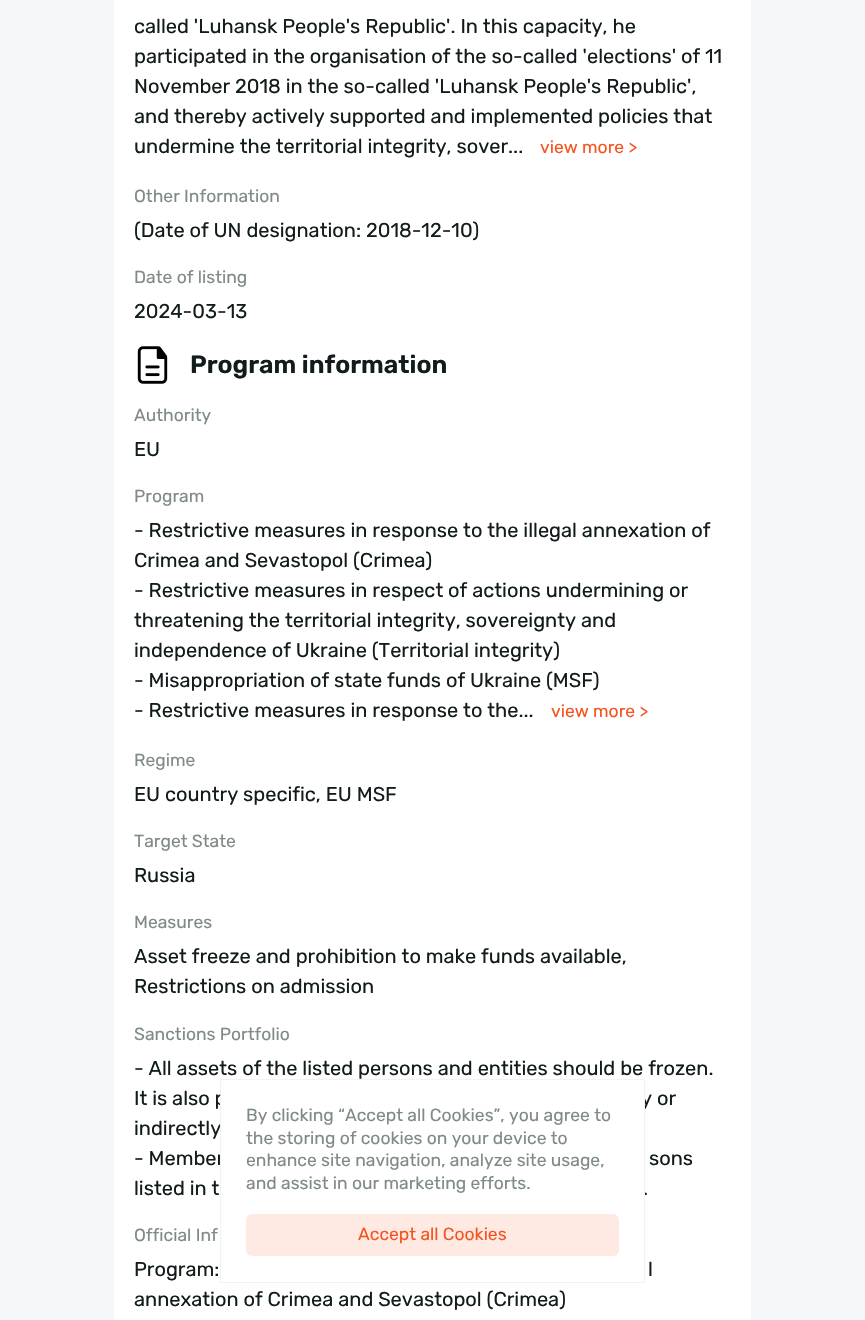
#include "include/core/SkBlurTypes.h"
#include "include/core/SkCanvas.h"
#include "include/core/SkData.h"
#include "include/core/SkFont.h"
#include "include/core/SkFontMgr.h"
#include "include/core/SkImage.h"
#include "include/core/SkMaskFilter.h"
#include "include/core/SkPaint.h"
#include "include/core/SkPathBuilder.h"
#include "include/core/SkTextBlob.h"
#include "include/effects/SkDashPathEffect.h"
#include "include/effects/SkGradientShader.h"
#include "include/utils/SkParsePath.h"

extern sk_sp<SkFontMgr> fontMgr;

void draw(SkCanvas* canvas) {
  SkPaint p;
  p.setAntiAlias(true);
  canvas->clear(SkColorSetRGB(246, 247, 249));
  p.setColor(SK_ColorWHITE);
  canvas->drawRect(SkRect::MakeLTRB(114, 0, 751, 1320), p);
  canvas->drawImageRect(SkImages::DeferredFromEncodedData(SkData::MakeFromFileName("images/1.png")), SkRect::MakeLTRB(137, 346, 168, 384), SkSamplingOptions());
  SkFont font1(fontMgr->matchFamilyStyle("Rubik", SkFontStyle::Normal()), 20);
  font1.setSubpixel(true);
  p.setColor(SkColorSetRGB(18, 28, 28));
  canvas->drawString("called 'Luhansk People's Republic'. In this capacity, he", 134, 33, font1, p);
  canvas->drawString("participated in the organisation of the so-called 'elections' of 11", 134, 63, font1, p);
  canvas->drawString("November 2018 in the so-called 'Luhansk People's Republic',", 134, 93, font1, p);
  canvas->drawString("and thereby actively supported and implemented policies that", 134, 123, font1, p);
  canvas->drawString("undermine the territorial integrity, sover...", 134, 153, font1, p);
  SkFont font2(fontMgr->matchFamilyStyle("Rubik", SkFontStyle::Normal()), 17.5f);
  font2.setSubpixel(true);
  p.setColor(SkColorSetRGB(245, 84, 32));
  canvas->drawString("view more >", 540, 153, font2, p);
  p.setColor(SkColorSetRGB(128, 138, 138));
  canvas->drawString("Other Information", 134, 202, font2, p);
  p.setColor(SkColorSetRGB(18, 28, 28));
  canvas->drawString("(Date of UN designation: 2018-12-10)", 134, 237, font1, p);
  p.setColor(SkColorSetRGB(128, 138, 138));
  canvas->drawString("Date of listing", 134, 283, font2, p);
  p.setColor(SkColorSetRGB(18, 28, 28));
  canvas->drawString("2024-03-13", 134, 318, font1, p);
  SkFont font3(fontMgr->matchFamilyStyle("Rubik", SkFontStyle(600, SkFontStyle::kNormal_Width, SkFontStyle::kUpright_Slant)), 25);
  font3.setSubpixel(true);
  canvas->drawString("Program information", 190, 373, font3, p);
  p.setColor(SkColorSetRGB(128, 138, 138));
  canvas->drawString("Authority", 134, 421, font2, p);
  p.setColor(SkColorSetRGB(18, 28, 28));
  canvas->drawString("EU", 134, 456, font1, p);
  p.setColor(SkColorSetRGB(128, 138, 138));
  canvas->drawString("Program", 134, 502, font2, p);
  p.setColor(SkColorSetRGB(18, 28, 28));
  canvas->drawString("- Restrictive measures in response to the illegal annexation of", 134, 537, font1, p);
  canvas->drawString("Crimea and Sevastopol (Crimea)", 134, 567, font1, p);
  canvas->drawString("- Restrictive measures in respect of actions undermining or", 134, 597, font1, p);
  canvas->drawString("threatening the territorial integrity, sovereignty and", 134, 627, font1, p);
  canvas->drawString("independence of Ukraine (Territorial integrity)", 134, 657, font1, p);
  canvas->drawString("- Misappropriation of state funds of Ukraine (MSF)", 134, 687, font1, p);
  canvas->drawString("- Restrictive measures in response to the...", 134, 717, font1, p);
  p.setColor(SkColorSetRGB(245, 84, 32));
  canvas->drawString("view more >", 551, 717, font2, p);
  p.setColor(SkColorSetRGB(128, 138, 138));
  canvas->drawString("Regime", 134, 766, font2, p);
  p.setColor(SkColorSetRGB(18, 28, 28));
  canvas->drawString("EU country specific, EU MSF", 134, 801, font1, p);
  p.setColor(SkColorSetRGB(128, 138, 138));
  canvas->drawString("Target State", 134, 847, font2, p);
  p.setColor(SkColorSetRGB(18, 28, 28));
  canvas->drawString("Russia", 134, 882, font1, p);
  p.setColor(SkColorSetRGB(128, 138, 138));
  canvas->drawString("Measures", 134, 928, font2, p);
  p.setColor(SkColorSetRGB(18, 28, 28));
  canvas->drawString("Asset freeze and prohibition to make funds available,", 134, 963, font1, p);
  canvas->drawString("Restrictions on admission", 134, 993, font1, p);
  p.setColor(SkColorSetRGB(128, 138, 138));
  canvas->drawString("Sanctions Portfolio", 134, 1040, font2, p);
  p.setColor(SkColorSetRGB(18, 28, 28));
  canvas->drawString("- All assets of the listed persons and entities should be frozen.", 134, 1075, font1, p);
  canvas->drawString("It is also p", 134, 1105, font1, p);
  canvas->drawString("y or", 641, 1105, font1, p);
  canvas->drawString("indirectly", 134, 1135, font1, p);
  canvas->drawString("- Member", 134, 1165, font1, p);
  canvas->drawString("sons", 649, 1165, font1, p);
  canvas->drawString("listed in t", 134, 1195, font1, p);
  canvas->drawString(".", 643, 1195, font1, p);
  p.setColor(SkColorSetRGB(128, 138, 138));
  canvas->drawString("Official Inf", 134, 1241, font2, p);
  p.setColor(SkColorSetRGB(18, 28, 28));
  canvas->drawString("Program:", 134, 1276, font1, p);
  canvas->drawString("l", 648, 1276, font1, p);
  canvas->drawString("annexation of Crimea and Sevastopol (Crimea)", 134, 1306, font1, p);
  p.setColor(SK_ColorWHITE);
  canvas->drawRoundRect(SkRect::MakeLTRB(220, 1079, 645, 1283), 18, 18, p);
  p.setStyle(SkPaint::kStroke_Style);
  p.setStrokeWidth(1);
  p.setColor(SkColorSetARGB(13, 0, 0, 0));
  canvas->drawRect(SkRect::MakeLTRB(220.5f, 1079.5f, 644.5f, 1282.5f), p);
  p.setStyle(SkPaint::kFill_Style);
  p.setColor(SkColorSetRGB(128, 138, 138));
  canvas->drawString("By clicking “Accept all Cookies”, you agree to", 246, 1121, font2, p);
  canvas->drawString("the storing of cookies on your device to", 246, 1144, font2, p);
  canvas->drawString("enhance site navigation, analyze site usage,", 246, 1166, font2, p);
  canvas->drawString("and assist in our marketing efforts.", 246, 1189, font2, p);
  p.setColor(SkColorSetRGB(255, 234, 227));
  canvas->drawRoundRect(SkRect::MakeLTRB(246, 1214, 619, 1256), 6, 6, p);
  p.setColor(SkColorSetRGB(245, 84, 32));
  canvas->drawString("Accept all Cookies", 358, 1240, font2, p);
}
